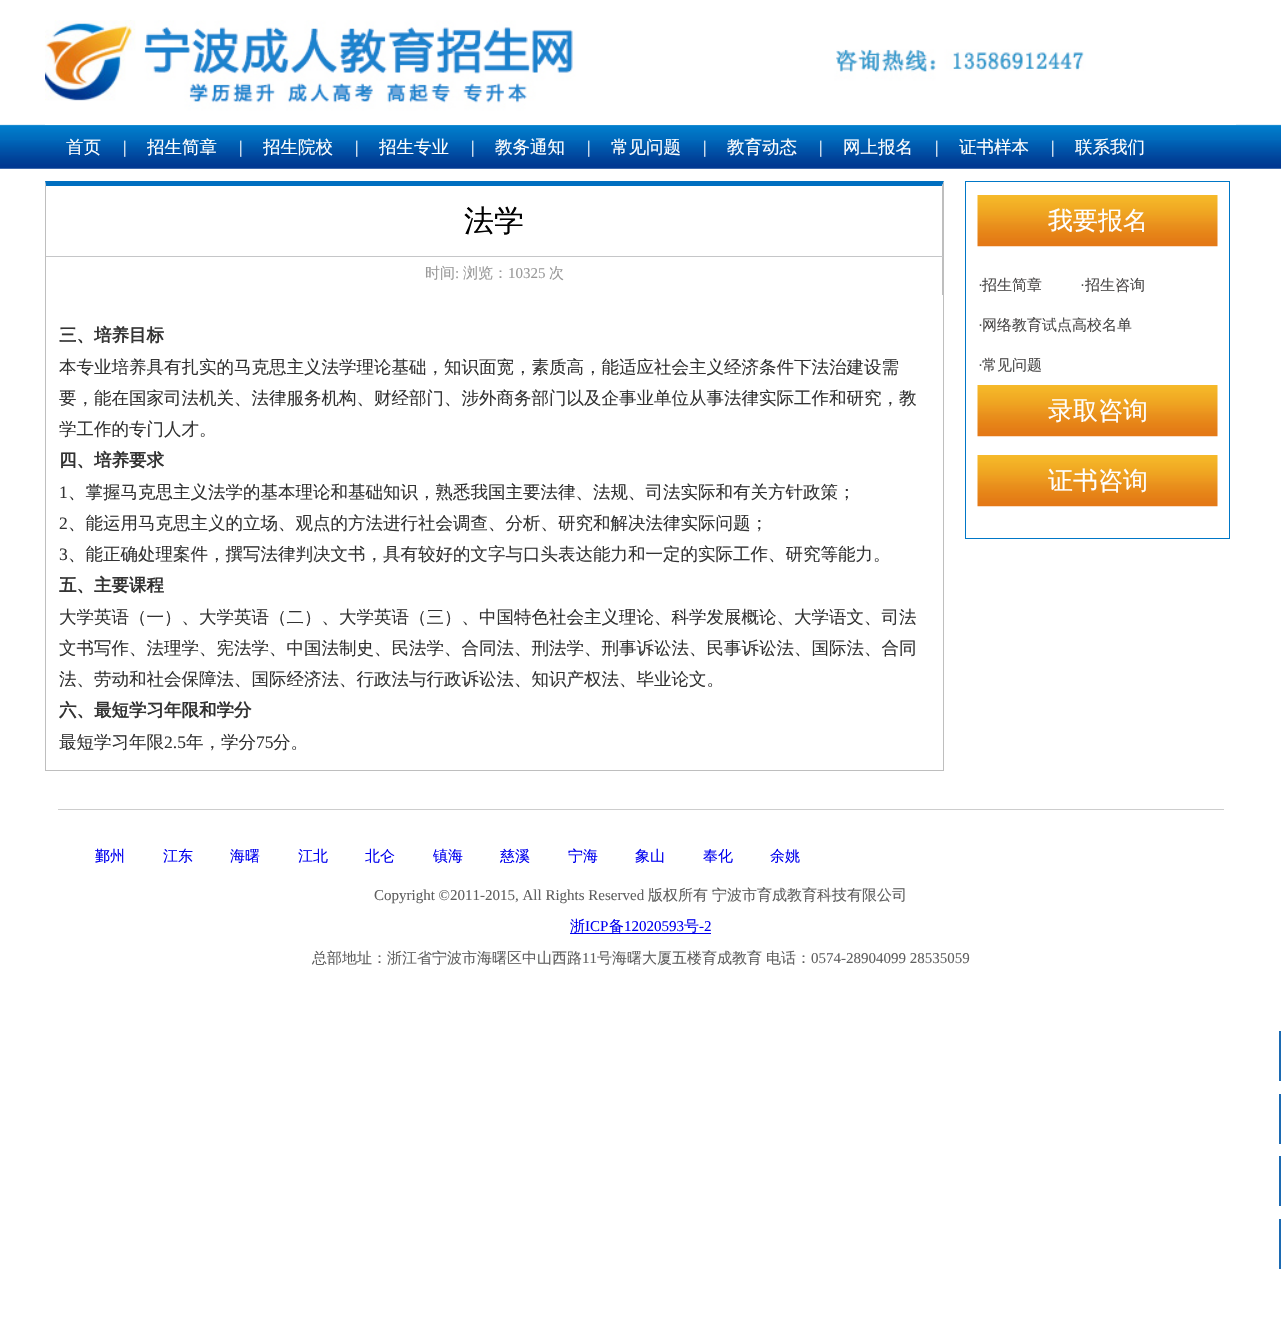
#include "include/core/SkBlurTypes.h"
#include "include/core/SkCanvas.h"
#include "include/core/SkData.h"
#include "include/core/SkFont.h"
#include "include/core/SkFontMgr.h"
#include "include/core/SkImage.h"
#include "include/core/SkMaskFilter.h"
#include "include/core/SkPaint.h"
#include "include/core/SkPathBuilder.h"
#include "include/core/SkTextBlob.h"
#include "include/effects/SkDashPathEffect.h"
#include "include/effects/SkGradientShader.h"
#include "include/utils/SkParsePath.h"

extern sk_sp<SkFontMgr> fontMgr;

void draw(SkCanvas* canvas) {
  SkPaint p;
  p.setAntiAlias(true);
  canvas->clear(SK_ColorWHITE);
  canvas->drawImageRect(SkImages::DeferredFromEncodedData(SkData::MakeFromFileName("images/1.png")), SkRect::MakeLTRB(0, 124, 1281, 169), SkSamplingOptions());
  canvas->drawImageRect(SkImages::DeferredFromEncodedData(SkData::MakeFromFileName("images/2.png")), SkRect::MakeLTRB(45, 20, 1236, 125), SkSamplingOptions());
  p.setColor(SkColorSetRGB(0, 111, 192));
  canvas->drawPath(SkPathBuilder().moveTo(45, 181).lineTo(944, 181).lineTo(942, 186).lineTo(46, 186).close().detach(), p);
  p.setColor(SkColorSetRGB(190, 190, 190));
  canvas->drawPath(SkPathBuilder().moveTo(944, 181).lineTo(944, 295).lineTo(942, 295).lineTo(942, 186).close().detach(), p);
  canvas->drawPath(SkPathBuilder().moveTo(45, 295).lineTo(45, 181).lineTo(46, 186).lineTo(46, 295).close().detach(), p);
  p.setColor(SkColorSetRGB(197, 198, 200));
  canvas->drawRect(SkRect::MakeLTRB(46, 256, 943, 257), p);
  p.setColor(SkColorSetRGB(190, 190, 190));
  canvas->drawRect(SkRect::MakeLTRB(943, 295, 944, 771), p);
  canvas->drawRect(SkRect::MakeLTRB(45, 770, 944, 771), p);
  canvas->drawRect(SkRect::MakeLTRB(45, 295, 46, 771), p);
  p.setStyle(SkPaint::kStroke_Style);
  p.setStrokeWidth(1);
  p.setColor(SkColorSetRGB(0, 119, 199));
  canvas->drawRect(SkRect::MakeLTRB(965.5f, 181.5f, 1229.5f, 538.5f), p);
  canvas->drawImageRect(SkImages::DeferredFromEncodedData(SkData::MakeFromFileName("images/3.png")), SkRect::MakeLTRB(977, 195, 1218, 247), SkSamplingOptions());
  canvas->drawImageRect(SkImages::DeferredFromEncodedData(SkData::MakeFromFileName("images/3.png")), SkRect::MakeLTRB(977, 385, 1218, 437), SkSamplingOptions());
  canvas->drawImageRect(SkImages::DeferredFromEncodedData(SkData::MakeFromFileName("images/3.png")), SkRect::MakeLTRB(977, 455, 1218, 507), SkSamplingOptions());
  p.setStyle(SkPaint::kFill_Style);
  p.setColor(SkColorSetRGB(205, 205, 205));
  canvas->drawRect(SkRect::MakeLTRB(58, 809, 1224, 810), p);
  p.setColor(SkColorSetRGB(0, 0, 238));
  canvas->drawRect(SkRect::MakeLTRB(570, 933, 711, 934), p);
  p.setColor(SkColorSetRGB(28, 106, 178));
  canvas->drawRect(SkRect::MakeLTRB(1279, 1031, 1281, 1081), p);
  canvas->drawRect(SkRect::MakeLTRB(1279, 1094, 1281, 1144), p);
  canvas->drawRect(SkRect::MakeLTRB(1279, 1156, 1281, 1206), p);
  canvas->drawRect(SkRect::MakeLTRB(1279, 1219, 1281, 1269), p);
  SkFont font1(fontMgr->matchFamilyStyle("WenQuanYi Zen Hei", SkFontStyle(500, SkFontStyle::kNormal_Width, SkFontStyle::kUpright_Slant)), 17.5f);
  font1.setSubpixel(true);
  p.setColor(SK_ColorWHITE);
  canvas->drawString("首页", 66, 153, font1, p);
  SkFont font2(fontMgr->matchFamilyStyle("Liberation Serif", SkFontStyle::Normal()), 17.5f);
  font2.setSubpixel(true);
  canvas->drawString("|", 123, 153, font2, p);
  canvas->drawString("招生简章", 147, 153, font1, p);
  canvas->drawString("|", 239, 153, font2, p);
  canvas->drawString("招生院校", 263, 153, font1, p);
  canvas->drawString("|", 355, 153, font2, p);
  canvas->drawString("招生专业", 379, 153, font1, p);
  canvas->drawString("|", 471, 153, font2, p);
  canvas->drawString("教务通知", 495, 153, font1, p);
  canvas->drawString("|", 587, 153, font2, p);
  canvas->drawString("常见问题", 611, 153, font1, p);
  canvas->drawString("|", 703, 153, font2, p);
  canvas->drawString("教育动态", 727, 153, font1, p);
  canvas->drawString("|", 819, 153, font2, p);
  canvas->drawString("网上报名", 843, 153, font1, p);
  canvas->drawString("|", 935, 153, font2, p);
  canvas->drawString("证书样本", 959, 153, font1, p);
  canvas->drawString("|", 1051, 153, font2, p);
  canvas->drawString("联系我们", 1075, 153, font1, p);
  SkFont font3(fontMgr->matchFamilyStyle("WenQuanYi Zen Hei", SkFontStyle(500, SkFontStyle::kNormal_Width, SkFontStyle::kUpright_Slant)), 30);
  font3.setSubpixel(true);
  p.setColor(SK_ColorBLACK);
  canvas->drawString("法学", 464, 231, font3, p);
  SkFont font4(fontMgr->matchFamilyStyle("WenQuanYi Zen Hei", SkFontStyle(500, SkFontStyle::kNormal_Width, SkFontStyle::kUpright_Slant)), 15);
  font4.setSubpixel(true);
  p.setColor(SkColorSetRGB(153, 153, 153));
  canvas->drawString("时间", 425, 278, font4, p);
  SkFont font5(fontMgr->matchFamilyStyle("Liberation Serif", SkFontStyle::Normal()), 15);
  font5.setSubpixel(true);
  canvas->drawString(":", 455, 278, font5, p);
  canvas->drawString("浏览：", 463, 278, font4, p);
  canvas->drawString("10325", 508, 278, font5, p);
  canvas->drawString("次", 549, 278, font4, p);
  SkFont font6(fontMgr->matchFamilyStyle("WenQuanYi Zen Hei", SkFontStyle::Bold()), 17.5f);
  font6.setSubpixel(true);
  p.setColor(SkColorSetRGB(51, 51, 51));
  canvas->drawString("三、培养目标", 59, 341, font6, p);
  canvas->drawString("本专业培养具有扎实的马克思主义法学理论基础，知识面宽，素质高，能适应社会主义经济条件下法治建设需", 59, 373, font1, p);
  canvas->drawString("要，能在国家司法机关、法律服务机构、财经部门、涉外商务部门以及企事业单位从事法律实际工作和研究，教", 59, 404, font1, p);
  canvas->drawString("学工作的专门人才。", 59, 435, font1, p);
  canvas->drawString("四、培养要求", 59, 466, font6, p);
  canvas->drawString("1", 59, 498, font2, p);
  canvas->drawString("、掌握马克思主义法学的基本理论和基础知识，熟悉我国主要法律、法规、司法实际和有关方针政策；", 68, 498, font1, p);
  canvas->drawString("2", 59, 529, font2, p);
  canvas->drawString("、能运用马克思主义的立场、观点的方法进行社会调查、分析、研究和解决法律实际问题；", 68, 529, font1, p);
  canvas->drawString("3", 59, 560, font2, p);
  canvas->drawString("、能正确处理案件，撰写法律判决文书，具有较好的文字与口头表达能力和一定的实际工作、研究等能力。", 68, 560, font1, p);
  canvas->drawString("五、主要课程", 59, 591, font6, p);
  canvas->drawString("大学英语（一）、大学英语（二）、大学英语（三）、中国特色社会主义理论、科学发展概论、大学语文、司法", 59, 623, font1, p);
  canvas->drawString("文书写作、法理学、宪法学、中国法制史、民法学、合同法、刑法学、刑事诉讼法、民事诉讼法、国际法、合同", 59, 654, font1, p);
  canvas->drawString("法、劳动和社会保障法、国际经济法、行政法与行政诉讼法、知识产权法、毕业论文。", 59, 685, font1, p);
  canvas->drawString("六、最短学习年限和学分", 59, 716, font6, p);
  canvas->drawString("最短学习年限", 59, 748, font1, p);
  canvas->drawString("2.5", 164, 748, font2, p);
  canvas->drawString("年，学分", 186, 748, font1, p);
  canvas->drawString("75", 256, 748, font2, p);
  canvas->drawString("分。", 273, 748, font1, p);
  SkFont font7(fontMgr->matchFamilyStyle("WenQuanYi Zen Hei", SkFontStyle(500, SkFontStyle::kNormal_Width, SkFontStyle::kUpright_Slant)), 25);
  font7.setSubpixel(true);
  p.setColor(SK_ColorWHITE);
  canvas->drawString("我要报名", 1048, 229, font7, p);
  p.setColor(SkColorSetRGB(73, 72, 72));
  canvas->drawString("·", 978, 290, font5, p);
  canvas->drawString("招生简章", 982, 290, font4, p);
  canvas->drawString("·", 1080, 290, font5, p);
  canvas->drawString("招生咨询", 1085, 290, font4, p);
  canvas->drawString("·", 978, 330, font5, p);
  canvas->drawString("网络教育试点高校名单", 982, 330, font4, p);
  canvas->drawString("·", 978, 370, font5, p);
  canvas->drawString("常见问题", 982, 370, font4, p);
  p.setColor(SK_ColorWHITE);
  canvas->drawString("录取咨询", 1048, 419, font7, p);
  canvas->drawString("证书咨询", 1048, 489, font7, p);
  p.setColor(SkColorSetRGB(0, 0, 238));
  canvas->drawString("鄞州", 95, 861, font4, p);
  canvas->drawString("江东", 163, 861, font4, p);
  canvas->drawString("海曙", 230, 861, font4, p);
  canvas->drawString("江北", 298, 861, font4, p);
  canvas->drawString("北仑", 365, 861, font4, p);
  canvas->drawString("镇海", 433, 861, font4, p);
  canvas->drawString("慈溪", 500, 861, font4, p);
  canvas->drawString("宁海", 568, 861, font4, p);
  canvas->drawString("象山", 635, 861, font4, p);
  canvas->drawString("奉化", 703, 861, font4, p);
  canvas->drawString("余姚", 770, 861, font4, p);
  p.setColor(SkColorSetRGB(95, 95, 95));
  canvas->drawString("Copyright ©2011-2015, All Rights Reserved", 374, 900, font5, p);
  canvas->drawString("版权所有", 648, 900, font4, p);
  canvas->drawString("宁波市育成教育科技有限公司", 712, 900, font4, p);
  p.setColor(SkColorSetRGB(0, 0, 238));
  canvas->drawString("浙", 570, 931, font4, p);
  canvas->drawString("ICP", 585, 931, font5, p);
  canvas->drawString("备", 609, 931, font4, p);
  canvas->drawString("12020593", 624, 931, font5, p);
  canvas->drawString("号", 684, 931, font4, p);
  canvas->drawString("-2", 699, 931, font5, p);
  p.setColor(SkColorSetRGB(95, 95, 95));
  canvas->drawString("总部地址：浙江省宁波市海曙区中山西路", 312, 963, font4, p);
  canvas->drawString("11", 582, 963, font5, p);
  canvas->drawString("号海曙大厦五楼育成教育", 597, 963, font4, p);
  canvas->drawString("电话：", 766, 963, font4, p);
  canvas->drawString("0574-28904099 28535059", 811, 963, font5, p);
}
